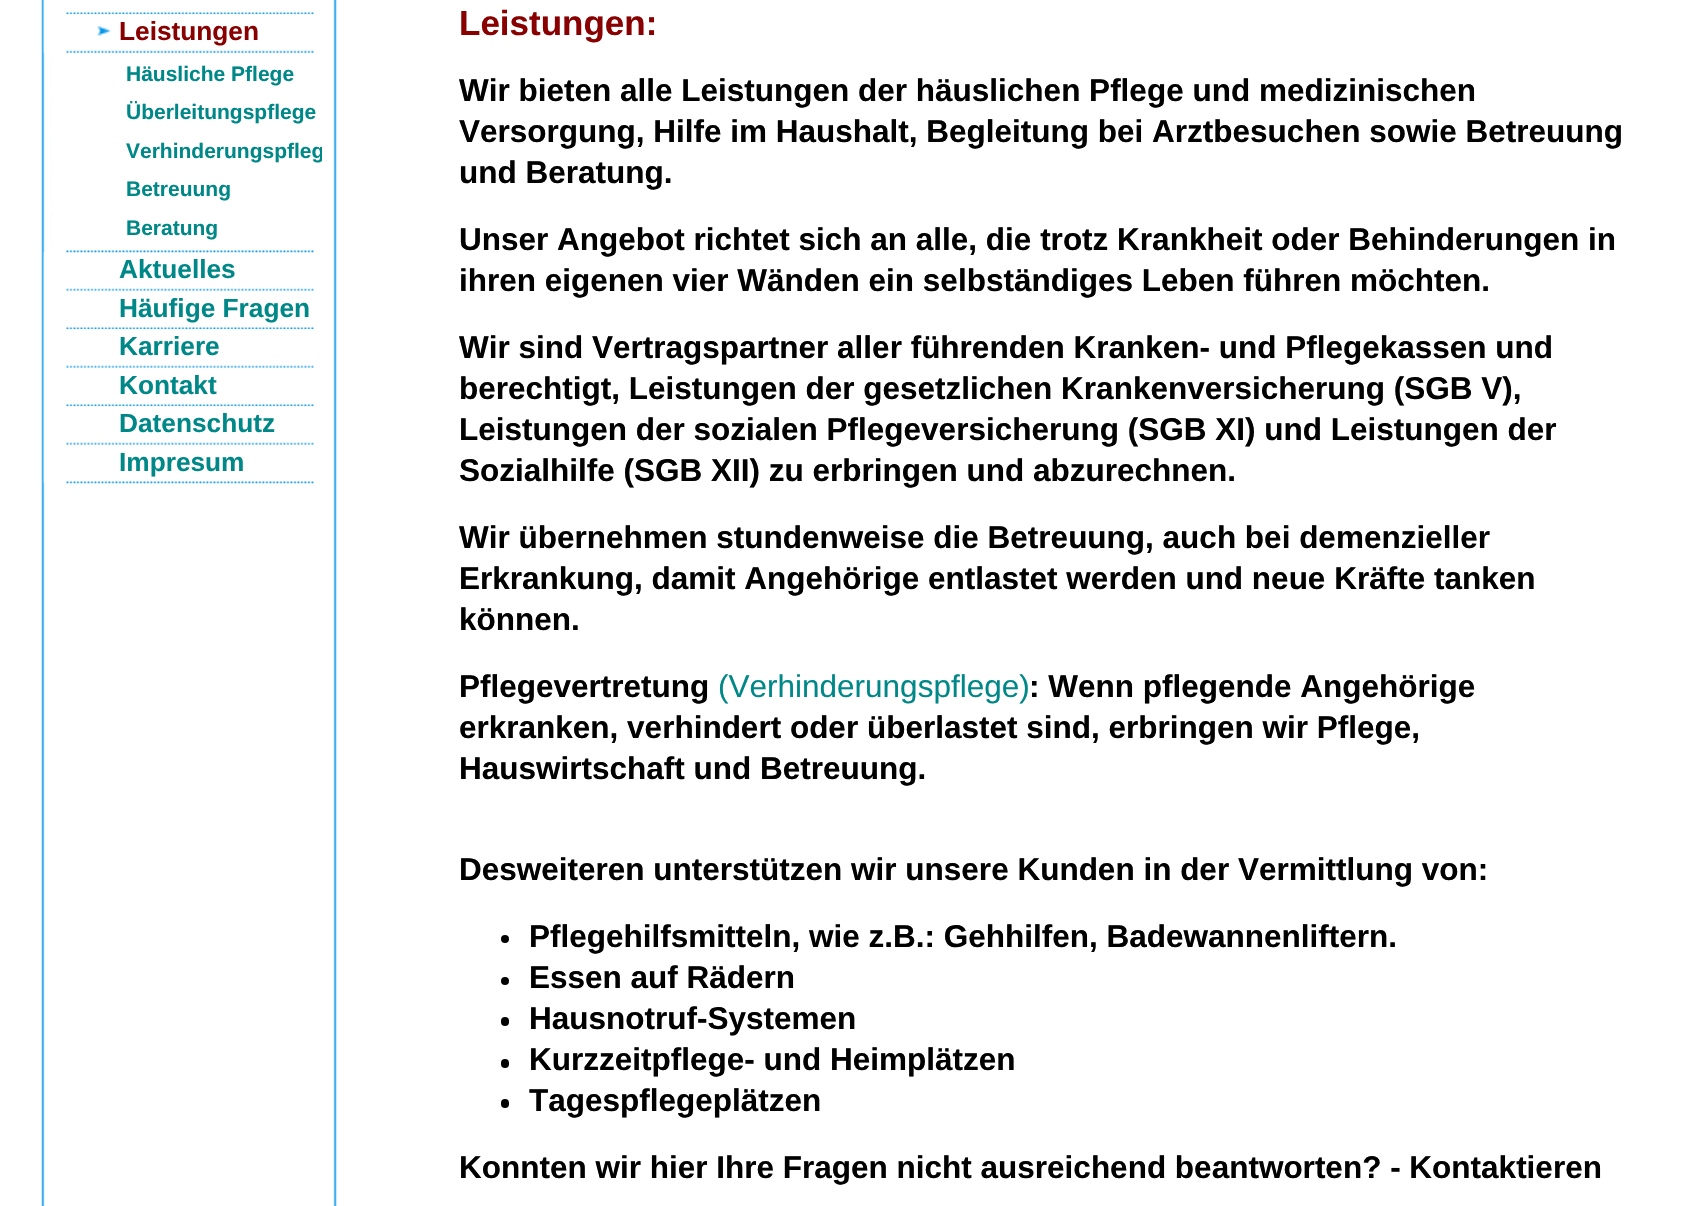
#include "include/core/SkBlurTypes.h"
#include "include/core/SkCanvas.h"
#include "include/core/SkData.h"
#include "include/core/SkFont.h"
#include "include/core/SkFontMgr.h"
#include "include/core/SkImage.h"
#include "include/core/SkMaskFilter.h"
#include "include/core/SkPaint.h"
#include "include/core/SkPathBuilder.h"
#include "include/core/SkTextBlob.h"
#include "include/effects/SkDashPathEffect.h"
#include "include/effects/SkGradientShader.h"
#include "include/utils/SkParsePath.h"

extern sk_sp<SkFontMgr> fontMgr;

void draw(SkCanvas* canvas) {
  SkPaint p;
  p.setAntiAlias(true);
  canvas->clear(SK_ColorWHITE);
  canvas->drawImageRect(SkImages::DeferredFromEncodedData(SkData::MakeFromFileName("images/1.png")), SkRect::MakeLTRB(41, 0, 337, 1206), SkSamplingOptions());
  canvas->drawImageRect(SkImages::DeferredFromEncodedData(SkData::MakeFromFileName("images/2.png")), SkRect::MakeLTRB(43, 0, 314, 15), SkSamplingOptions());
  canvas->drawImageRect(SkImages::DeferredFromEncodedData(SkData::MakeFromFileName("images/3.png")), SkRect::MakeLTRB(43, 14, 314, 53), SkSamplingOptions());
  canvas->drawImageRect(SkImages::DeferredFromEncodedData(SkData::MakeFromFileName("images/4.png")), SkRect::MakeLTRB(51, 58, 52, 90), SkSamplingOptions());
  canvas->drawImageRect(SkImages::DeferredFromEncodedData(SkData::MakeFromFileName("images/5.png")), SkRect::MakeLTRB(51, 96, 52, 128), SkSamplingOptions());
  canvas->drawImageRect(SkImages::DeferredFromEncodedData(SkData::MakeFromFileName("images/4.png")), SkRect::MakeLTRB(51, 135, 52, 167), SkSamplingOptions());
  canvas->drawImageRect(SkImages::DeferredFromEncodedData(SkData::MakeFromFileName("images/5.png")), SkRect::MakeLTRB(51, 173, 52, 205), SkSamplingOptions());
  canvas->drawImageRect(SkImages::DeferredFromEncodedData(SkData::MakeFromFileName("images/4.png")), SkRect::MakeLTRB(51, 212, 52, 244), SkSamplingOptions());
  canvas->drawImageRect(SkImages::DeferredFromEncodedData(SkData::MakeFromFileName("images/7.png")), SkRect::MakeLTRB(43, 252, 314, 291), SkSamplingOptions());
  canvas->drawImageRect(SkImages::DeferredFromEncodedData(SkData::MakeFromFileName("images/6.png")), SkRect::MakeLTRB(66, 250, 314, 253), SkSamplingOptions());
  canvas->drawImageRect(SkImages::DeferredFromEncodedData(SkData::MakeFromFileName("images/8.png")), SkRect::MakeLTRB(43, 290, 314, 330), SkSamplingOptions());
  canvas->drawImageRect(SkImages::DeferredFromEncodedData(SkData::MakeFromFileName("images/9.png")), SkRect::MakeLTRB(43, 329, 314, 368), SkSamplingOptions());
  canvas->drawImageRect(SkImages::DeferredFromEncodedData(SkData::MakeFromFileName("images/8.png")), SkRect::MakeLTRB(43, 367, 314, 407), SkSamplingOptions());
  canvas->drawImageRect(SkImages::DeferredFromEncodedData(SkData::MakeFromFileName("images/9.png")), SkRect::MakeLTRB(43, 406, 314, 445), SkSamplingOptions());
  canvas->drawImageRect(SkImages::DeferredFromEncodedData(SkData::MakeFromFileName("images/8.png")), SkRect::MakeLTRB(43, 444, 314, 484), SkSamplingOptions());
  p.setColor(SK_ColorBLACK);
  canvas->drawCircle(505, 939, 4, p);
  canvas->drawCircle(505, 981, 4, p);
  canvas->drawRoundRect(SkRect::MakeLTRB(501, 1017, 509, 1026), 4, 4, p);
  canvas->drawRoundRect(SkRect::MakeLTRB(501, 1059, 509, 1068), 4, 4, p);
  canvas->drawRoundRect(SkRect::MakeLTRB(501, 1099, 509, 1108), 4, 4, p);
  SkFont font1(fontMgr->matchFamilyStyle("Liberation Sans", SkFontStyle::Bold()), 26.25f);
  font1.setSubpixel(true);
  p.setColor(SkColorSetRGB(136, 0, 0));
  canvas->drawString("Leistungen", 119, 40, font1, p);
  SkFont font2(fontMgr->matchFamilyStyle("Liberation Sans", SkFontStyle::Bold()), 21);
  font2.setSubpixel(true);
  p.setColor(SkColorSetRGB(0, 136, 136));
  canvas->drawString("Häusliche Pflege", 126, 81, font2, p);
  canvas->drawString("Überleitungspflege", 126, 119, font2, p);
  canvas->save();
  canvas->clipRect(SkRect::MakeLTRB(51, 135, 322, 173));
  canvas->drawString("Verhinderungspfleg", 126, 158, font2, p);
  canvas->restore();
  canvas->drawString("Betreuung", 126, 196, font2, p);
  canvas->drawString("Beratung", 126, 235, font2, p);
  canvas->drawString("Aktuelles", 119, 278, font1, p);
  canvas->drawString("Häufige Fragen", 119, 317, font1, p);
  canvas->drawString("Karriere", 119, 355, font1, p);
  canvas->drawString("Kontakt", 119, 394, font1, p);
  canvas->drawString("Datenschutz", 119, 432, font1, p);
  canvas->drawString("Impresum", 119, 471, font1, p);
  SkFont font3(fontMgr->matchFamilyStyle("Liberation Sans", SkFontStyle::Bold()), 35);
  font3.setSubpixel(true);
  p.setColor(SkColorSetRGB(136, 0, 0));
  canvas->drawString("Leistungen:", 459, 35, font3, p);
  SkFont font4(fontMgr->matchFamilyStyle("Liberation Sans", SkFontStyle::Bold()), 31.5f);
  font4.setSubpixel(true);
  p.setColor(SK_ColorBLACK);
  canvas->drawString("Wir bieten alle Leistungen der häuslichen Pflege und medizinischen", 459, 101, font4, p);
  canvas->drawString("Versorgung, Hilfe im Haushalt, Begleitung bei Arztbesuchen sowie Betreuung", 459, 142, font4, p);
  canvas->drawString("und Beratung.", 459, 183, font4, p);
  canvas->drawString("Unser Angebot richtet sich an alle, die trotz Krankheit oder Behinderungen in", 459, 250, font4, p);
  canvas->drawString("ihren eigenen vier Wänden ein selbständiges Leben führen möchten.", 459, 291, font4, p);
  canvas->drawString("Wir sind Vertragspartner aller führenden Kranken- und Pflegekassen und", 459, 358, font4, p);
  canvas->drawString("berechtigt, Leistungen der gesetzlichen Krankenversicherung (SGB V),", 459, 399, font4, p);
  canvas->drawString("Leistungen der sozialen Pflegeversicherung (SGB XI) und Leistungen der", 459, 440, font4, p);
  canvas->drawString("Sozialhilfe (SGB XII) zu erbringen und abzurechnen.", 459, 481, font4, p);
  canvas->drawString("Wir übernehmen stundenweise die Betreuung, auch bei demenzieller", 459, 548, font4, p);
  canvas->drawString("Erkrankung, damit Angehörige entlastet werden und neue Kräfte tanken", 459, 589, font4, p);
  canvas->drawString("können.", 459, 630, font4, p);
  canvas->drawString("Pflegevertretung", 459, 697, font4, p);
  SkFont font5(fontMgr->matchFamilyStyle("Liberation Sans", SkFontStyle::Normal()), 31.5f);
  font5.setSubpixel(true);
  p.setColor(SkColorSetRGB(0, 136, 136));
  canvas->drawString("(Verhinderungspflege)", 718, 697, font5, p);
  p.setColor(SK_ColorBLACK);
  canvas->drawString(": Wenn pflegende Angehörige", 1029, 697, font4, p);
  canvas->drawString("erkranken, verhindert oder überlastet sind, erbringen wir Pflege,", 459, 738, font4, p);
  canvas->drawString("Hauswirtschaft und Betreuung.", 459, 779, font4, p);
  canvas->drawString("Desweiteren unterstützen wir unsere Kunden in der Vermittlung von:", 459, 880, font4, p);
  canvas->drawString("Pflegehilfsmitteln, wie z.B.: Gehhilfen, Badewannenliftern.", 529, 947, font4, p);
  canvas->drawString("Essen auf Rädern", 529, 988, font4, p);
  canvas->drawString("Hausnotruf-Systemen", 529, 1029, font4, p);
  canvas->drawString("Kurzzeitpflege- und Heimplätzen", 529, 1070, font4, p);
  canvas->drawString("Tagespflegeplätzen", 529, 1111, font4, p);
  canvas->drawString("Konnten wir hier Ihre Fragen nicht ausreichend beantworten? - Kontaktieren", 459, 1178, font4, p);
}
